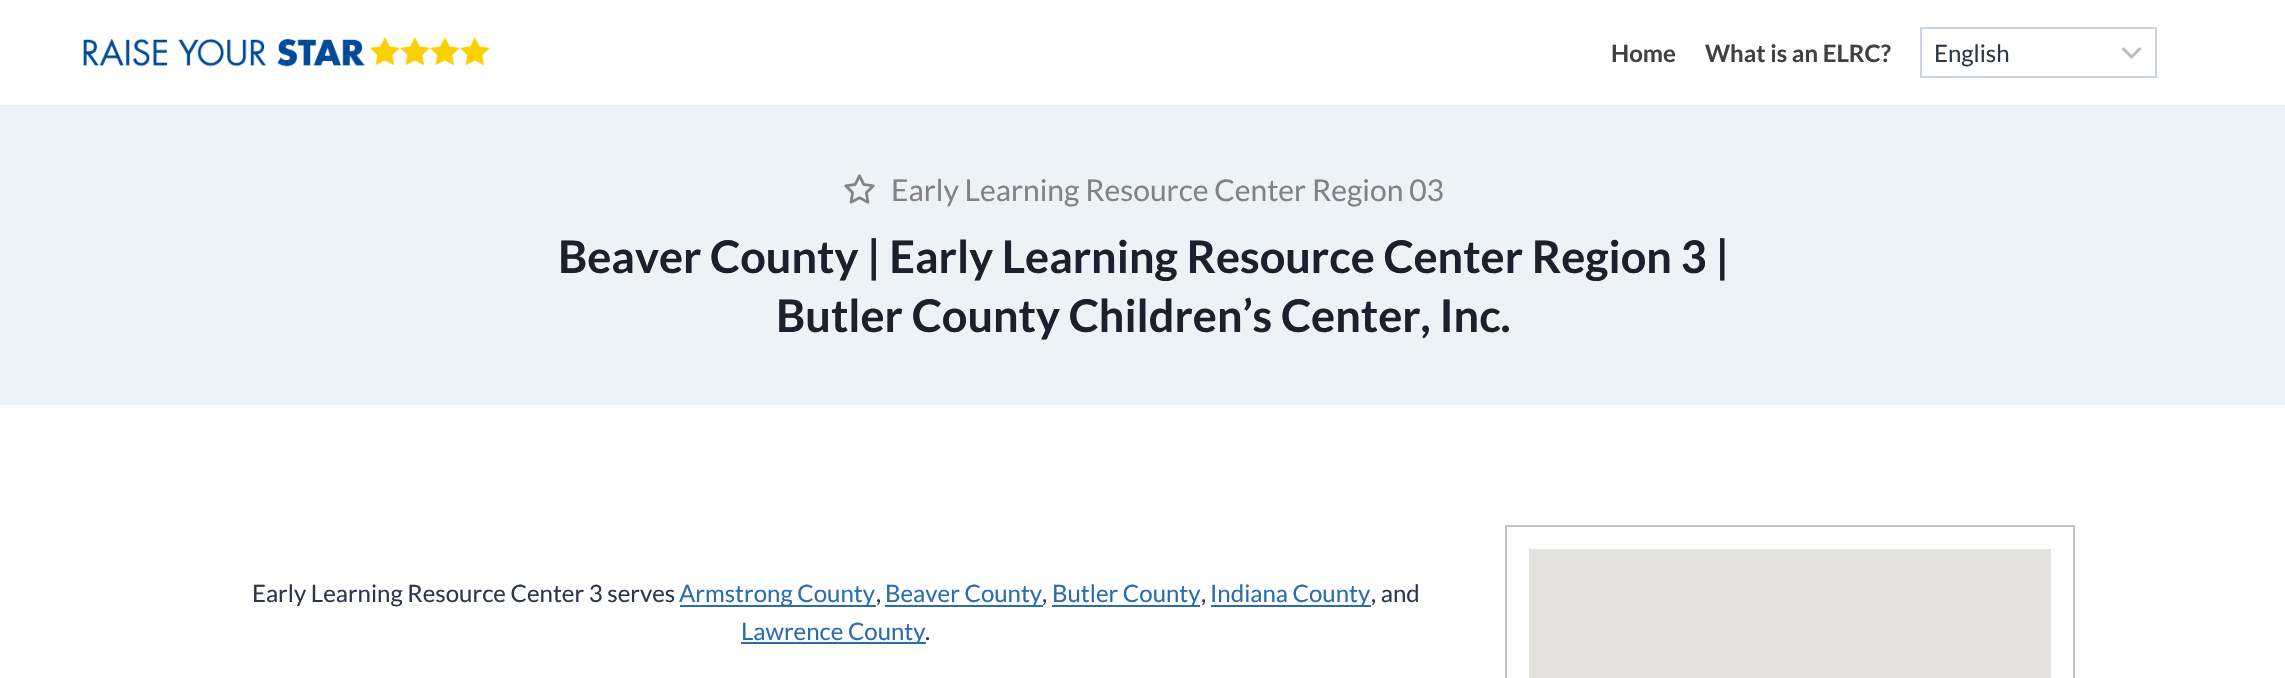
#include "include/core/SkBlurTypes.h"
#include "include/core/SkCanvas.h"
#include "include/core/SkData.h"
#include "include/core/SkFont.h"
#include "include/core/SkFontMgr.h"
#include "include/core/SkImage.h"
#include "include/core/SkMaskFilter.h"
#include "include/core/SkPaint.h"
#include "include/core/SkPathBuilder.h"
#include "include/core/SkTextBlob.h"
#include "include/effects/SkDashPathEffect.h"
#include "include/effects/SkGradientShader.h"
#include "include/utils/SkParsePath.h"

extern sk_sp<SkFontMgr> fontMgr;

void draw(SkCanvas* canvas) {
  SkPaint p;
  p.setAntiAlias(true);
  canvas->clear(SK_ColorWHITE);
  canvas->drawImageRect(SkImages::DeferredFromEncodedData(SkData::MakeFromFileName("images/1.png")), SkRect::MakeLTRB(83, 37, 491, 67), SkSamplingOptions());
  p.setStyle(SkPaint::kStroke_Style);
  p.setStrokeWidth(3);
  p.setColor(SkColorSetRGB(187, 187, 187));
  canvas->drawPath(SkPathBuilder().moveTo(2122.5f, 48).lineTo(2131.5f, 57).lineTo(2140.5f, 48).detach(), p);
  p.setStrokeWidth(2);
  p.setColor(SkColorSetRGB(203, 213, 224));
  canvas->drawRect(SkRect::MakeLTRB(1921, 28, 2156, 77), p);
  p.setStyle(SkPaint::kFill_Style);
  p.setColor(SkColorSetRGB(237, 242, 247));
  canvas->drawRect(SkRect::MakeLTRB(0, 105, 2285, 405), p);
  canvas->drawImageRect(SkImages::DeferredFromEncodedData(SkData::MakeFromFileName("images/2.png")), SkRect::MakeLTRB(844, 174, 875, 204), SkSamplingOptions());
  p.setColor(SkColorSetRGB(43, 108, 176));
  canvas->drawRect(SkRect::MakeLTRB(680, 605, 876, 607), p);
  canvas->drawRect(SkRect::MakeLTRB(885, 605, 1043, 607), p);
  canvas->drawRect(SkRect::MakeLTRB(1052, 605, 1200, 607), p);
  canvas->drawRect(SkRect::MakeLTRB(1211, 605, 1371, 607), p);
  canvas->drawRect(SkRect::MakeLTRB(741, 642, 926, 644), p);
  p.setStyle(SkPaint::kStroke_Style);
  p.setColor(SkColorSetRGB(193, 195, 197));
  canvas->drawRect(SkRect::MakeLTRB(1506, 526, 2074, 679), p);
  p.setStyle(SkPaint::kFill_Style);
  p.setColor(SkColorSetRGB(229, 227, 223));
  canvas->drawRect(SkRect::MakeLTRB(1529, 549, 2051, 678), p);
  SkFont font1(fontMgr->matchFamilyStyle("Lato", SkFontStyle::Bold()), 24);
  font1.setSubpixel(true);
  p.setColor(SkColorSetRGB(65, 64, 66));
  canvas->drawString("Home", 1611, 62, font1, p);
  canvas->drawString("What is an ELRC?", 1705, 62, font1, p);
  SkFont font2(fontMgr->matchFamilyStyle("Lato", SkFontStyle::Normal()), 24);
  font2.setSubpixel(true);
  p.setColor(SkColorSetRGB(45, 55, 72));
  canvas->drawString("English", 1934, 62, font2, p);
  SkFont font3(fontMgr->matchFamilyStyle("Lato", SkFontStyle::Normal()), 30);
  font3.setSubpixel(true);
  p.setColor(SkColorSetRGB(131, 129, 133));
  canvas->drawString("Early Learning Resource Center Region 03", 891, 201, font3, p);
  SkFont font4(fontMgr->matchFamilyStyle("Lato", SkFontStyle::Bold()), 45);
  font4.setSubpixel(true);
  p.setColor(SkColorSetRGB(26, 32, 44));
  canvas->drawString("Beaver County | Early Learning Resource Center Region 3 |", 558, 273, font4, p);
  canvas->drawString("Butler County Children’s Center, Inc.", 776, 332, font4, p);
  p.setColor(SkColorSetRGB(45, 55, 72));
  canvas->drawString("Early Learning Resource Center 3 serves", 252, 602, font2, p);
  p.setColor(SkColorSetRGB(43, 108, 176));
  canvas->drawString("Armstrong County", 679, 602, font2, p);
  p.setColor(SkColorSetRGB(45, 55, 72));
  canvas->drawString(",", 876, 602, font2, p);
  p.setColor(SkColorSetRGB(43, 108, 176));
  canvas->drawString("Beaver County", 885, 602, font2, p);
  p.setColor(SkColorSetRGB(45, 55, 72));
  canvas->drawString(",", 1042, 602, font2, p);
  p.setColor(SkColorSetRGB(43, 108, 176));
  canvas->drawString("Butler County", 1052, 602, font2, p);
  p.setColor(SkColorSetRGB(45, 55, 72));
  canvas->drawString(",", 1201, 602, font2, p);
  p.setColor(SkColorSetRGB(43, 108, 176));
  canvas->drawString("Indiana County", 1210, 602, font2, p);
  p.setColor(SkColorSetRGB(45, 55, 72));
  canvas->drawString(", and", 1371, 602, font2, p);
  p.setColor(SkColorSetRGB(43, 108, 176));
  canvas->drawString("Lawrence County", 741, 640, font2, p);
  p.setColor(SkColorSetRGB(45, 55, 72));
  canvas->drawString(".", 925, 640, font2, p);
}
